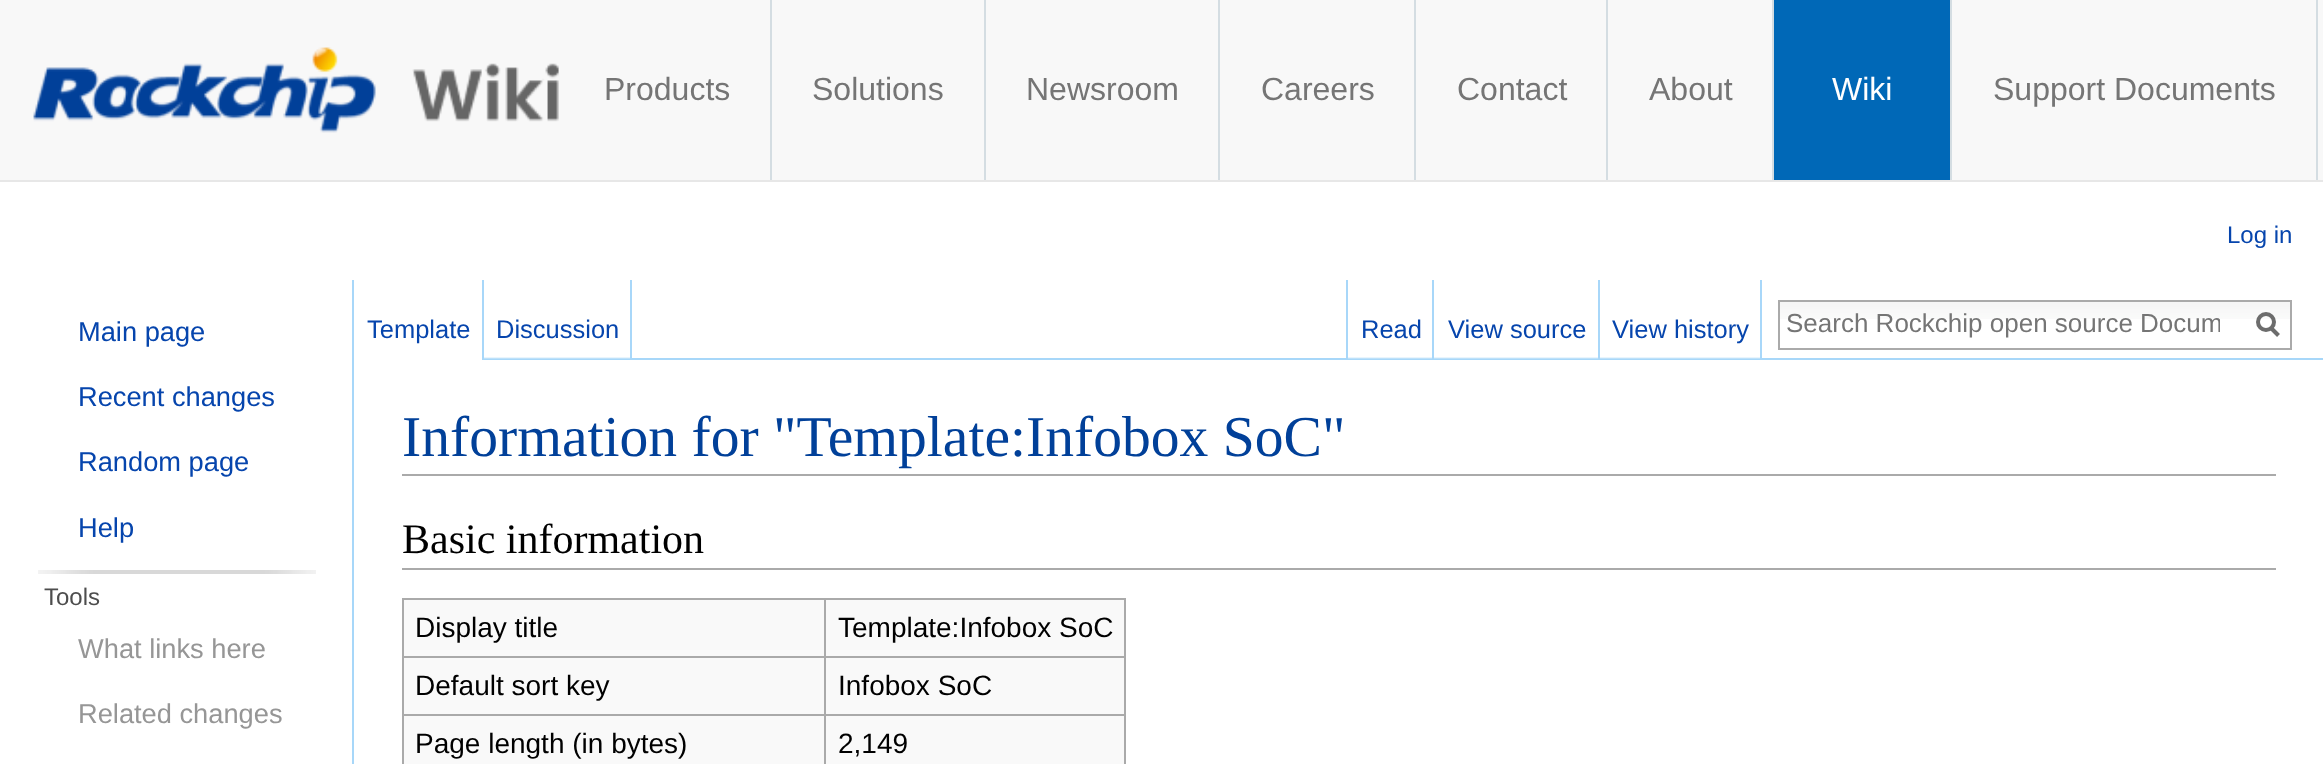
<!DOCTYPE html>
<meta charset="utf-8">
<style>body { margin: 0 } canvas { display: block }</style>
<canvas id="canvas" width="2323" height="764"></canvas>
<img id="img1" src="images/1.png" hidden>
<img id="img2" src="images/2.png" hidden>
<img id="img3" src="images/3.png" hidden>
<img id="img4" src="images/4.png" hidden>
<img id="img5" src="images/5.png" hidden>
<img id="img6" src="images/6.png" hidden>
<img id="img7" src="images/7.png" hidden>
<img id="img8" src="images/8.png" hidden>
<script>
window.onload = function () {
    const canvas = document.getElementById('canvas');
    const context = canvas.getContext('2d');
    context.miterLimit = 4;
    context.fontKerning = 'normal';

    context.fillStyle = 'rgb(255, 255, 255)';
    context.fillRect(0, 0, 2323, 764);
    context.fillStyle = 'rgb(248, 248, 248)';
    context.fillRect(0, 0, 2323, 180);
    context.fillStyle = 'rgb(231, 231, 231)';
    context.fillRect(0, 180, 2323, 2);
    context.drawImage(document.getElementById('img1'), 33, 47, 343, 86);
    context.drawImage(document.getElementById('img2'), 412, 63, 147, 59);
    context.fillStyle = 'rgb(212, 221, 226)';
    context.fillRect(770, 0, 2, 180);
    context.fillRect(984, 0, 2, 180);
    context.fillRect(1218, 0, 2, 180);
    context.fillRect(1414, 0, 2, 180);
    context.fillRect(1606, 0, 2, 180);
    context.fillRect(1772, 0, 2, 180);
    context.fillStyle = 'rgb(0, 104, 183)';
    context.fillRect(1774, 0, 176, 180);
    context.fillStyle = 'rgb(212, 221, 226)';
    context.fillRect(1950, 0, 2, 180);
    context.fillRect(2316, 0, 2, 180);
    context.fillStyle = 'rgb(168, 215, 249)';
    context.fillRect(352, 280, 2, 78);
    context.fillRect(482, 280, 2, 80);
    context.drawImage(document.getElementById('img3'), 484, 280, 148, 80);
    context.fillRect(630, 280, 2, 79);
    context.fillRect(1346, 280, 2, 78);
    context.fillStyle = 'rgb(167, 215, 249)';
    context.fillRect(632, 358, 1691, 2);
    context.drawImage(document.getElementById('img4'), 1348, 280, 86, 80);
    context.fillStyle = 'rgb(168, 215, 249)';
    context.fillRect(1432, 280, 2, 79);
    context.drawImage(document.getElementById('img5'), 1434, 280, 166, 80);
    context.fillRect(1598, 280, 2, 79);
    context.drawImage(document.getElementById('img6'), 1600, 280, 162, 80);
    context.fillRect(1760, 280, 2, 79);
    context.drawImage(document.getElementById('img7'), 1780, 302, 510, 17);
    context.strokeStyle = 'rgb(170, 170, 170)';
    context.lineWidth = 2;
    context.strokeRect(1779, 301, 512, 48);
    context.beginPath();
    context.moveTo(2278.5, 335.5);
    context.lineTo(2270.5, 327.5);
    context.strokeStyle = 'rgb(108, 108, 108)';
    context.lineWidth = 4;
    context.stroke();
    context.beginPath();
    context.arc(2266, 322, 8, 0, 2 * Math.PI);
    context.stroke();
    context.drawImage(document.getElementById('img8'), 38, 570, 278, 4);
    context.fillStyle = 'rgb(167, 215, 249)';
    context.fillRect(352, 358, 2, 406);
    context.fillStyle = 'rgb(170, 170, 170)';
    context.fillRect(402, 474, 1874, 2);
    context.fillRect(402, 568, 1874, 2);
    context.fillStyle = 'rgb(249, 249, 249)';
    context.fillRect(404, 600, 720, 164);
    context.fillStyle = 'rgb(170, 170, 170)';
    context.fillRect(402, 598, 724, 2);
    context.fillRect(1124, 598, 2, 166);
    context.fillRect(402, 598, 2, 166);
    context.fillRect(824, 656, 302, 2);
    context.fillRect(824, 714, 302, 2);
    context.fillRect(824, 714, 2, 50);
    context.fillRect(402, 714, 424, 2);
    context.fillRect(824, 656, 2, 60);
    context.fillRect(402, 656, 424, 2);
    context.fillRect(824, 598, 2, 60);
    context.font = '32px Liberation Sans';
    context.fillStyle = 'rgb(117, 117, 117)';
    context.fillText('Products', 604, 100);
    context.fillText('Solutions', 812, 100);
    context.fillText('Newsroom', 1026, 100);
    context.fillText('Careers', 1261, 100);
    context.fillText('Contact', 1457, 100);
    context.fillText('About', 1649, 100);
    context.fillStyle = 'rgb(255, 255, 255)';
    context.fillText('Wiki', 1832, 100);
    context.fillStyle = 'rgb(117, 117, 117)';
    context.fillText('Support Documents', 1993, 100);
    context.font = '24px Liberation Sans';
    context.fillStyle = 'rgb(6, 69, 173)';
    context.fillText('Log in', 2227, 243);
    context.font = '25.5px Liberation Sans';
    context.fillText('Template', 367, 338);
    context.fillText('Discussion', 496, 338);
    context.fillText('Read', 1361, 338);
    context.fillText('View source', 1448, 338);
    context.fillText('View history', 1612, 338);
    context.save();
    context.beginPath();
    context.rect(1786, 308, 434, 30);
    context.clip();
    context.font = '26px Liberation Sans';
    context.fillStyle = 'rgb(117, 117, 117)';
    context.fillText('Search Rockchip open source Docum', 1786, 332);
    context.restore();
    context.font = '27.25px Liberation Sans';
    context.fillText('Main page', 78, 341);
    context.fillText('Recent changes', 78, 406);
    context.fillText('Random page', 78, 471);
    context.fillText('Help', 78, 537);
    context.font = '24px Liberation Sans';
    context.fillStyle = 'rgb(77, 77, 77)';
    context.fillText('Tools', 44, 605);
    context.font = '27.25px Liberation Sans';
    context.fillStyle = 'rgb(150, 150, 150)';
    context.fillText('What links here', 78, 658);
    context.fillText('Related changes', 78, 723);
    context.font = '57.6px Liberation Serif';
    context.fillStyle = 'rgb(1, 64, 153)';
    context.fillText('Information for "Template:Infobox SoC"', 402, 456);
    context.font = '42px Liberation Serif';
    context.fillStyle = 'rgb(0, 0, 0)';
    context.fillText('Basic information', 402, 553);
    context.font = '28px Liberation Sans';
    context.fillText('Display title', 415, 637);
    context.fillText('Template:Infobox SoC', 838, 637);
    context.fillText('Default sort key', 415, 695);
    context.fillText('Infobox SoC', 838, 695);
    context.fillText('Page length (in bytes)', 415, 753);
    context.fillText('2,149', 838, 753);
};
</script>
